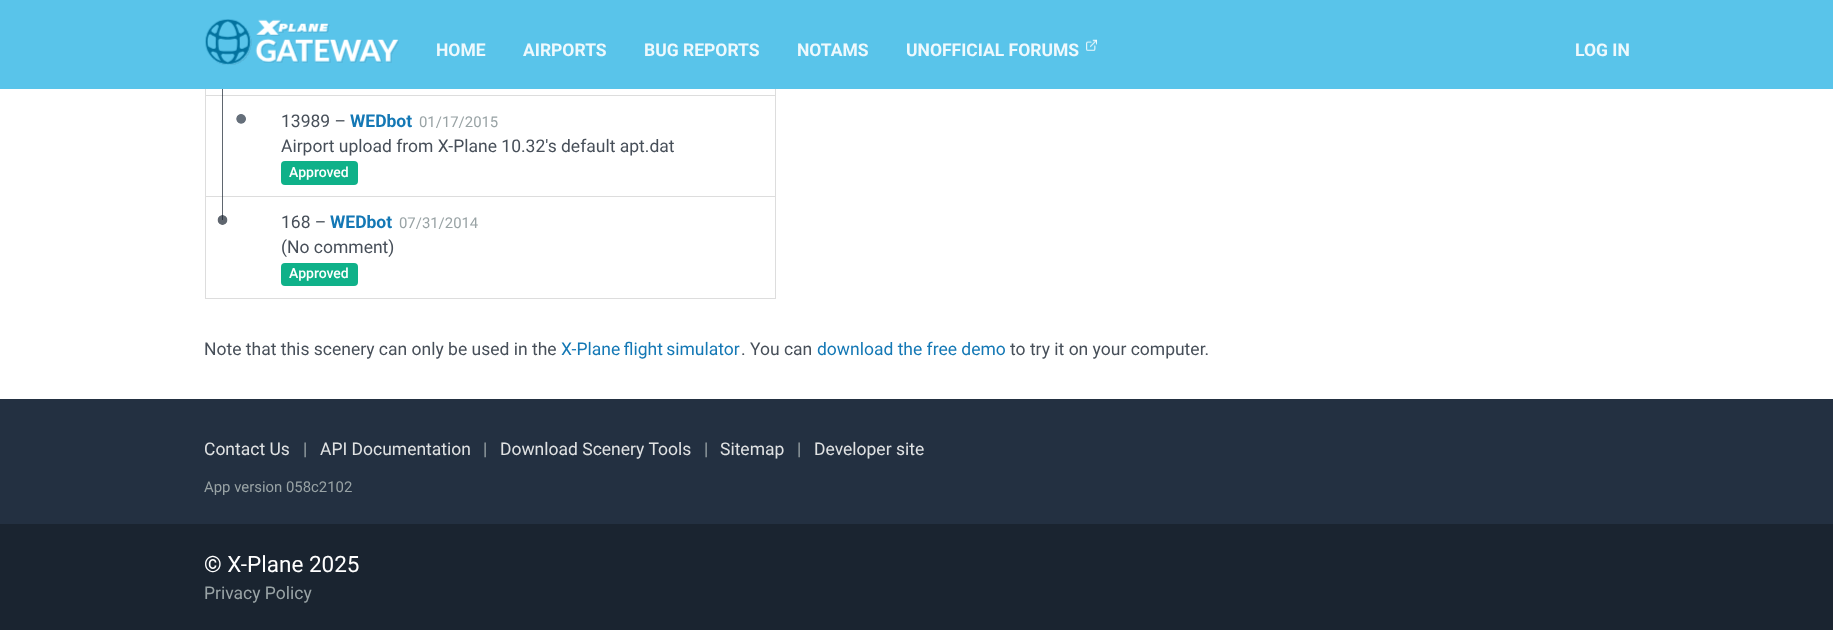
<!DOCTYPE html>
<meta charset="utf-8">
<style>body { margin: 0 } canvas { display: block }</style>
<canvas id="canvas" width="1833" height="630"></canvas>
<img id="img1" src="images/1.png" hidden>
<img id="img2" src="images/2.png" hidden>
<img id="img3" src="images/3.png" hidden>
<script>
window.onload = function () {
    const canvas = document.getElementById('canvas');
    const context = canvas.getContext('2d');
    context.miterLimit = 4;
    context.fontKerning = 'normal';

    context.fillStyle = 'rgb(255, 255, 255)';
    context.fillRect(0, 0, 1833, 630);
    context.strokeStyle = 'rgb(221, 221, 221)';
    context.strokeRect(205.5, -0.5, 570, 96);
    context.fillStyle = 'rgb(89, 196, 234)';
    context.fillRect(0, 0, 1833, 89);
    context.drawImage(document.getElementById('img1'), 205, 19, 194, 46);
    context.drawImage(document.getElementById('img2'), 1086, 39, 11, 12);
    context.strokeRect(205.5, 95.5, 570, 102);
    context.fillStyle = 'rgb(255, 255, 255)';
    context.fillRect(206, 197, 569, 1);
    context.strokeRect(205.5, 196.5, 570, 102);
    context.drawImage(document.getElementById('img3'), 217, 89, 29, 136);
    context.fillStyle = 'rgb(15, 177, 137)';
    context.beginPath();
    context.roundRect(281, 161, 77, 24, 4);
    context.fill();
    context.beginPath();
    context.roundRect(281, 263, 77, 23, 4);
    context.fill();
    context.fillStyle = 'rgb(35, 48, 65)';
    context.fillRect(0, 399, 1833, 125);
    context.fillStyle = 'rgb(26, 36, 48)';
    context.fillRect(0, 524, 1833, 106);
    context.font = 'bold 17.5px Roboto';
    context.fillStyle = 'rgb(238, 249, 253)';
    context.fillText('HOME', 436, 56);
    context.fillText('AIRPORTS', 523, 56);
    context.fillText('BUG REPORTS', 644, 56);
    context.fillText('NOTAMS', 797, 56);
    context.fillText('UNOFFICIAL FORUMS', 906, 56);
    context.fillText('LOG IN', 1575, 56);
    context.font = '17.5px Roboto';
    context.fillStyle = 'rgb(71, 79, 89)';
    context.fillText('13989 –', 281, 127);
    context.font = 'bold 17.5px Roboto';
    context.fillStyle = 'rgb(20, 120, 181)';
    context.fillText('WEDbot', 350, 127);
    context.font = '14.9px Roboto';
    context.fillStyle = 'rgb(153, 163, 165)';
    context.fillText('01/17/2015', 419, 127);
    context.font = '17.5px Roboto';
    context.fillStyle = 'rgb(71, 79, 89)';
    context.fillText('Airport upload from X-Plane 10.32\'s default apt.dat', 281, 152);
    context.font = '500 14px Roboto';
    context.fillStyle = 'rgb(255, 255, 255)';
    context.fillText('Approved', 289, 177);
    context.font = '17.5px Roboto';
    context.fillStyle = 'rgb(71, 79, 89)';
    context.fillText('168 –', 281, 228);
    context.font = 'bold 17.5px Roboto';
    context.fillStyle = 'rgb(20, 120, 181)';
    context.fillText('WEDbot', 330, 228);
    context.font = '14.9px Roboto';
    context.fillStyle = 'rgb(153, 163, 165)';
    context.fillText('07/31/2014', 399, 228);
    context.font = '17.5px Roboto';
    context.fillStyle = 'rgb(71, 79, 89)';
    context.fillText('(No comment)', 281, 253);
    context.font = '500 14px Roboto';
    context.fillStyle = 'rgb(255, 255, 255)';
    context.fillText('Approved', 289, 278);
    context.font = '17.5px Roboto';
    context.fillStyle = 'rgb(71, 79, 89)';
    context.fillText('Note that this scenery can only be used in the', 204, 355);
    context.wordSpacing = '-1px';
    context.fillStyle = 'rgb(20, 120, 181)';
    context.fillText('X-Plane flight simulator', 561, 355);
    context.wordSpacing = '0px';
    context.fillStyle = 'rgb(71, 79, 89)';
    context.fillText('. You can', 741, 355);
    context.fillStyle = 'rgb(20, 120, 181)';
    context.fillText('download the free demo', 817, 355);
    context.fillStyle = 'rgb(71, 79, 89)';
    context.fillText('to try it on your computer.', 1010, 355);
    context.fillStyle = 'rgb(224, 226, 227)';
    context.fillText('Contact Us', 204, 455);
    context.fillStyle = 'rgb(153, 163, 165)';
    context.fillText('|', 303, 455);
    context.fillStyle = 'rgb(224, 226, 227)';
    context.fillText('API Documentation', 320, 455);
    context.fillStyle = 'rgb(153, 163, 165)';
    context.fillText('|', 483, 455);
    context.fillStyle = 'rgb(224, 226, 227)';
    context.fillText('Download Scenery Tools', 500, 455);
    context.fillStyle = 'rgb(153, 163, 165)';
    context.fillText('|', 704, 455);
    context.fillStyle = 'rgb(224, 226, 227)';
    context.fillText('Sitemap', 720, 455);
    context.fillStyle = 'rgb(153, 163, 165)';
    context.fillText('|', 797, 455);
    context.fillStyle = 'rgb(224, 226, 227)';
    context.fillText('Developer site', 814, 455);
    context.font = '14.9px Roboto';
    context.fillStyle = 'rgb(153, 163, 165)';
    context.fillText('App version 058c2102', 204, 492);
    context.font = '22.5px Roboto';
    context.fillStyle = 'rgb(255, 255, 255)';
    context.fillText('© X-Plane 2025', 204, 572);
    context.font = '17.5px Roboto';
    context.fillStyle = 'rgb(153, 163, 165)';
    context.fillText('Privacy Policy', 204, 599);
};
</script>
